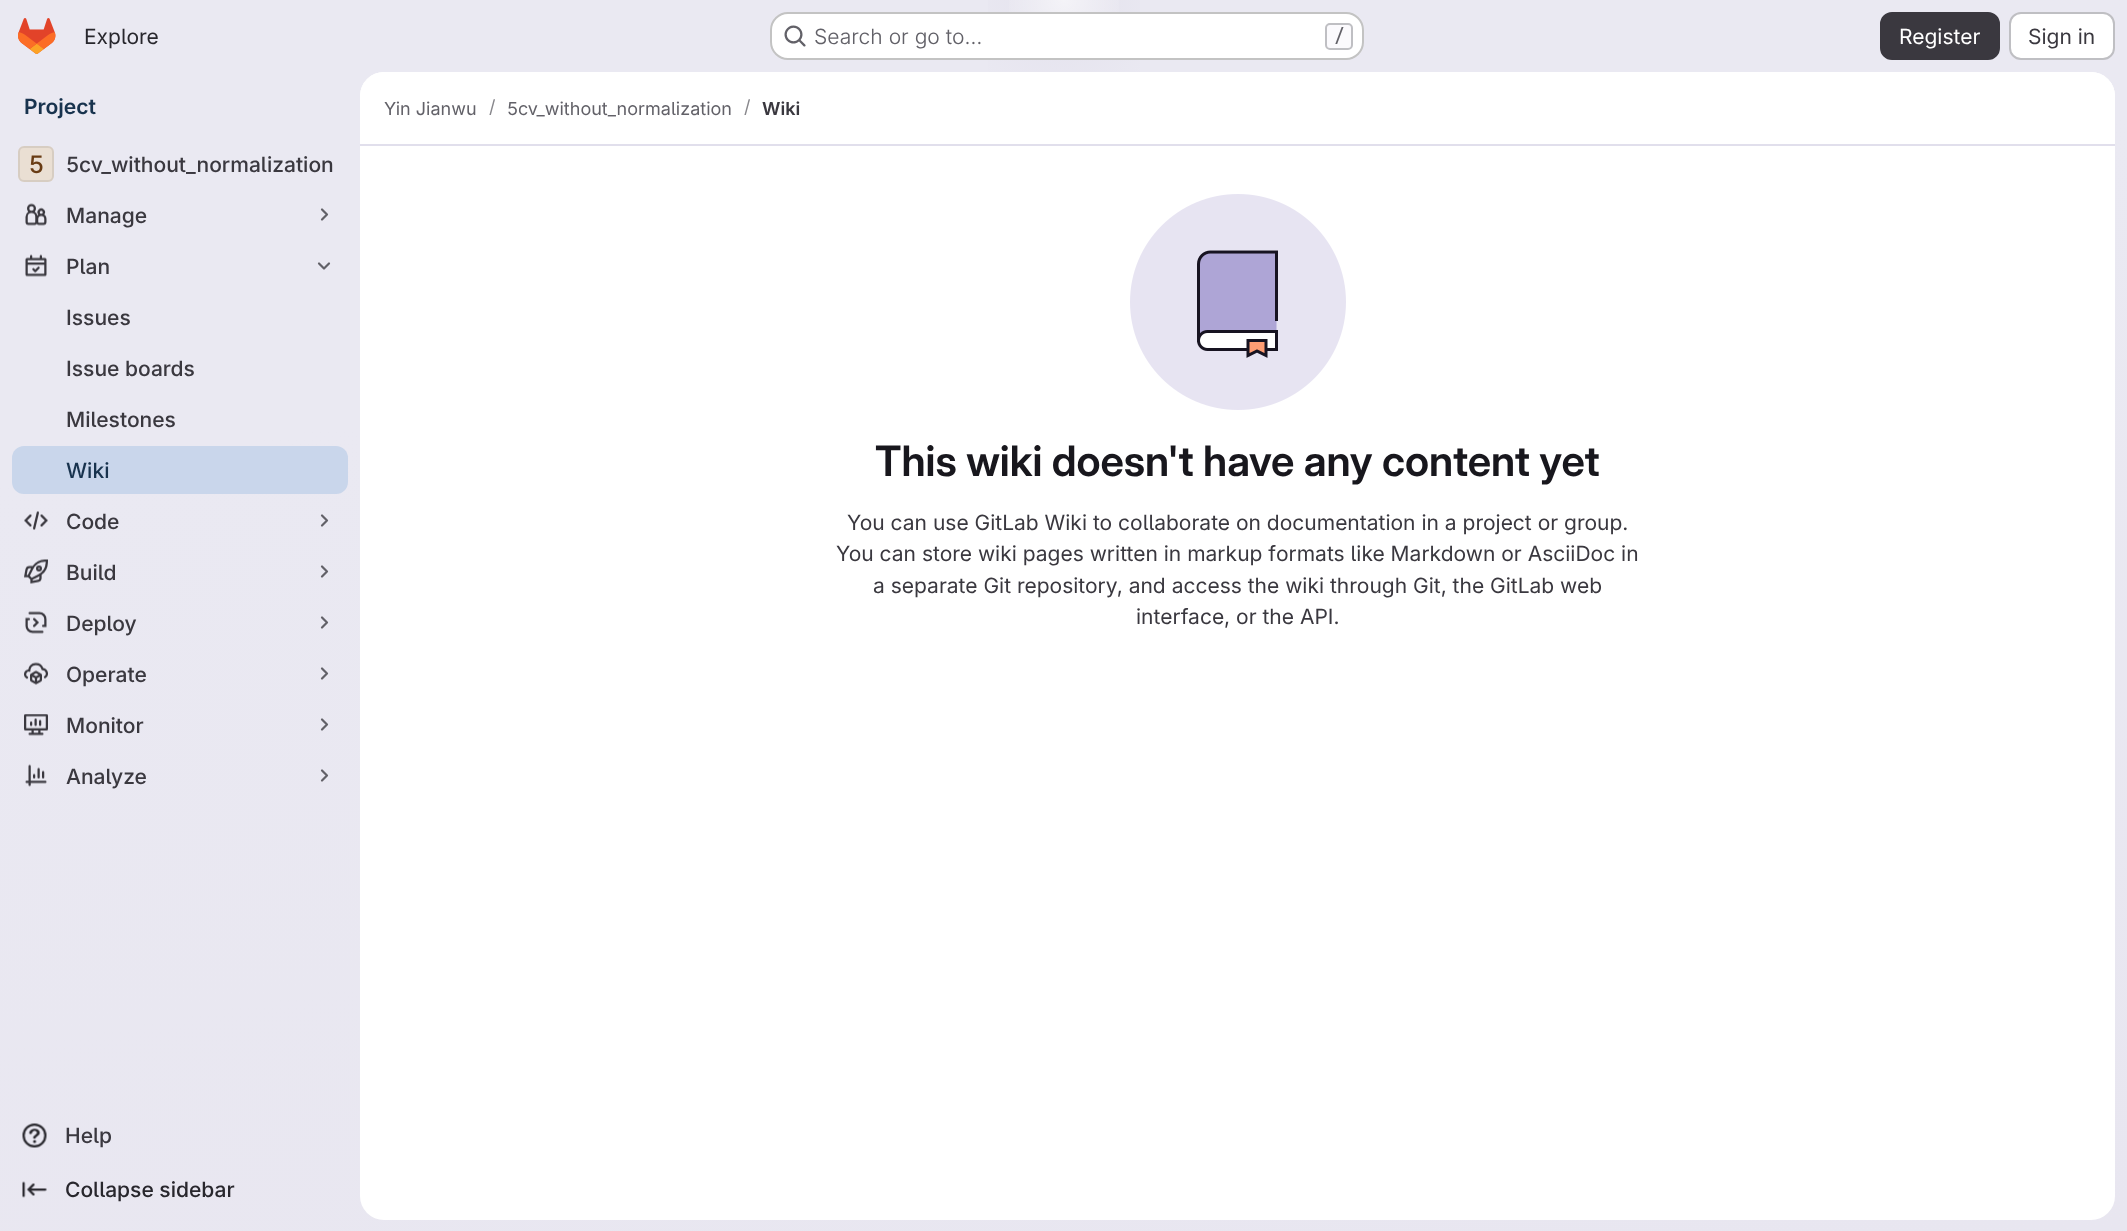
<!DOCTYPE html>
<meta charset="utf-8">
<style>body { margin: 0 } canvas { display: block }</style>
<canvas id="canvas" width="2127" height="1231"></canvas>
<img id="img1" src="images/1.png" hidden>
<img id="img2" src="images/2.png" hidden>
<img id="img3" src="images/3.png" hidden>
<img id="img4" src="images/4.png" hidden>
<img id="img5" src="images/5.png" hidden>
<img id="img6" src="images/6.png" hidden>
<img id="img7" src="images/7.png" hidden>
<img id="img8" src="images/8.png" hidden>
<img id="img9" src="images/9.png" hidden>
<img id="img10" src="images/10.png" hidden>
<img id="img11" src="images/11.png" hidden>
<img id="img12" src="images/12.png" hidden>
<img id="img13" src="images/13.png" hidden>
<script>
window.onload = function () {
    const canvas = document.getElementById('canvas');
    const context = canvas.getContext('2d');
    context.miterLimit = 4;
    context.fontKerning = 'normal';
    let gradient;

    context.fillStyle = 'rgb(255, 255, 255)';
    context.fillRect(0, 0, 2127, 1231);
    gradient = context.createLinearGradient(1201, 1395, 926, -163);
    gradient.addColorStop(0, 'rgb(232, 230, 240)');
    gradient.addColorStop(0.7, 'rgb(234, 233, 242)');
    context.fillStyle = gradient;
    context.fillRect(0, 0, 2127, 1231);
    gradient = context.createRadialGradient(1064, 0, 0, 1064, 0, 1064);
    gradient.addColorStop(0, 'rgb(228, 226, 237)');
    gradient.addColorStop(0.1, 'rgba(228, 226, 237, 0)');
    context.fillStyle = gradient;
    context.beginPath();
    context.rect(988, 0, 152, 72);
    context.save();
    context.clip();
    context.scale(1, 1232 / 1064);
    context.fillRect(0, 0, 2127, 1064);
    context.restore();
    gradient = context.createRadialGradient(1064, 0, 0, 1064, 0, 1064);
    gradient.addColorStop(0, 'rgb(228, 226, 236)');
    gradient.addColorStop(0.07, 'rgba(228, 226, 236, 0)');
    context.fillStyle = gradient;
    context.beginPath();
    context.rect(1054, 18, 20, 4);
    context.save();
    context.clip();
    context.scale(1, 1232 / 1064);
    context.fillRect(0, 0, 2127, 1064);
    context.restore();
    gradient = context.createRadialGradient(1064, 0, 0, 1064, 0, 1627);
    gradient.addColorStop(0, 'rgba(255, 255, 255, 0.6)');
    gradient.addColorStop(0.04, 'rgba(255, 255, 255, 0)');
    context.fillStyle = gradient;
    context.fillRect(1009, 0, 110, 12);
    context.drawImage(document.getElementById('img1'), 18, 18, 38, 36);
    context.fillStyle = 'rgb(255, 255, 255)';
    context.beginPath();
    context.roundRect(770, 12, 594, 48, 18);
    context.fill();
    context.beginPath();
    context.roundRect(771, 13, 592, 46, 17);
    context.strokeStyle = 'rgba(5, 5, 6, 0.24)';
    context.lineWidth = 2;
    context.stroke();
    context.drawImage(document.getElementById('img2'), 784, 25, 22, 22);
    context.fillStyle = 'rgb(251, 250, 253)';
    context.beginPath();
    context.roundRect(1326, 24, 26, 25, 4);
    context.fill();
    context.strokeStyle = 'rgb(191, 191, 195)';
    context.stroke();
    context.fillStyle = 'rgb(58, 56, 63)';
    context.beginPath();
    context.roundRect(1881, 13, 118, 46, 11);
    context.fill();
    context.strokeStyle = 'rgb(58, 56, 63)';
    context.stroke();
    context.fillStyle = 'rgb(255, 255, 255)';
    context.beginPath();
    context.roundRect(2010, 13, 104, 46, 11);
    context.fill();
    context.strokeStyle = 'rgb(191, 191, 195)';
    context.stroke();
    context.fillStyle = 'rgb(234, 223, 211)';
    context.beginPath();
    context.roundRect(18, 146, 36, 36, 6);
    context.fill();
    context.beginPath();
    context.roundRect(19, 147, 34, 34, 5);
    context.strokeStyle = 'rgba(5, 5, 6, 0.08)';
    context.stroke();
    context.drawImage(document.getElementById('img3'), 25, 203, 22, 23);
    context.beginPath();
    context.moveTo(322, 209.5);
    context.lineTo(327, 214.5);
    context.lineTo(322, 219.5);
    context.strokeStyle = 'rgb(98, 97, 104)';
    context.lineWidth = 2.2;
    context.lineCap = 'round';
    context.lineJoin = 'round';
    context.stroke();
    context.drawImage(document.getElementById('img4'), 25, 254, 22, 23);
    context.beginPath();
    context.moveTo(329, 263.5);
    context.lineTo(324, 268.5);
    context.lineTo(319, 263.5);
    context.stroke();
    context.fillStyle = 'rgb(201, 214, 235)';
    context.beginPath();
    context.roundRect(12, 446, 336, 48, 12);
    context.fill();
    context.drawImage(document.getElementById('img5'), 24, 511, 24, 19);
    context.beginPath();
    context.moveTo(322, 515.5);
    context.lineTo(327, 520.5);
    context.lineTo(322, 525.5);
    context.stroke();
    context.drawImage(document.getElementById('img6'), 24, 559, 24, 25);
    context.beginPath();
    context.moveTo(322, 566.5);
    context.lineTo(327, 571.5);
    context.lineTo(322, 576.5);
    context.stroke();
    context.drawImage(document.getElementById('img7'), 25, 611, 22, 23);
    context.beginPath();
    context.moveTo(322, 617.5);
    context.lineTo(327, 622.5);
    context.lineTo(322, 627.5);
    context.stroke();
    context.drawImage(document.getElementById('img8'), 24, 662, 24, 23);
    context.beginPath();
    context.moveTo(322, 668.5);
    context.lineTo(327, 673.5);
    context.lineTo(322, 678.5);
    context.stroke();
    context.drawImage(document.getElementById('img9'), 24, 714, 24, 22);
    context.beginPath();
    context.moveTo(322, 719.5);
    context.lineTo(327, 724.5);
    context.lineTo(322, 729.5);
    context.stroke();
    context.drawImage(document.getElementById('img10'), 25, 764, 22, 23);
    context.beginPath();
    context.moveTo(322, 770.5);
    context.lineTo(327, 775.5);
    context.lineTo(322, 780.5);
    context.stroke();
    context.drawImage(document.getElementById('img11'), 22, 1123, 25, 25);
    context.drawImage(document.getElementById('img12'), 22, 1181, 25, 17);
    context.fillStyle = 'rgb(255, 255, 255)';
    context.beginPath();
    context.roundRect(360, 72, 1755, 1148, 24);
    context.fill();
    context.beginPath();
    context.roundRect(360, 72, 1755, 74, [24, 24, 0, 0]);
    context.fill();
    context.fillStyle = 'rgb(225, 223, 236)';
    context.fillRect(360, 144, 1755, 2);
    context.drawImage(document.getElementById('img13'), 1130, 194, 216, 216);
    context.font = '21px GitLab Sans';
    context.fillStyle = 'rgb(40, 39, 45)';
    context.fillText('Explore', 84, 44);
    context.font = '300 21px GitLab Sans';
    context.fillStyle = 'rgb(98, 97, 104)';
    context.fillText('Search or go to…', 814, 44);
    context.font = '500 18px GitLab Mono';
    context.fillText('/', 1334, 42);
    context.font = '21px GitLab Sans';
    context.fillStyle = 'rgb(255, 255, 255)';
    context.fillText('Register', 1899, 44);
    context.fillStyle = 'rgb(58, 56, 63)';
    context.fillText('Sign in', 2028, 44);
    context.font = '600 21px "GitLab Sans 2"';
    context.fillStyle = 'rgb(24, 51, 78)';
    context.fillText('Project', 24, 114);
    context.font = '500 24px "GitLab Sans 2"';
    context.fillStyle = 'rgb(105, 60, 20)';
    context.fillText('5', 29, 173);
    context.font = '500 21px GitLab Sans';
    context.fillStyle = 'rgb(58, 56, 63)';
    context.fillText('5cv_without_normalization', 66, 172);
    context.fillText('Manage', 66, 223);
    context.fillText('Plan', 66, 274);
    context.fillText('Issues', 66, 325);
    context.fillText('Issue boards', 66, 376);
    context.fillText('Milestones', 66, 427);
    context.fillStyle = 'rgb(24, 51, 78)';
    context.fillText('Wiki', 66, 478);
    context.fillStyle = 'rgb(58, 56, 63)';
    context.fillText('Code', 66, 529);
    context.fillText('Build', 66, 580);
    context.fillText('Deploy', 66, 631);
    context.fillText('Operate', 66, 682);
    context.fillText('Monitor', 66, 733);
    context.fillText('Analyze', 66, 784);
    context.fillText('Help', 65, 1143);
    context.fillStyle = 'rgb(40, 39, 45)';
    context.fillText('Collapse sidebar', 65, 1197);
    context.font = '18px GitLab Sans';
    context.fillStyle = 'rgb(98, 97, 104)';
    context.fillText('Yin Jianwu', 384, 115);
    context.fillStyle = 'rgb(137, 136, 141)';
    context.fillText('/', 489, 113);
    context.fillStyle = 'rgb(98, 97, 104)';
    context.fillText('5cv_without_normalization', 507, 115);
    context.fillStyle = 'rgb(137, 136, 141)';
    context.fillText('/', 744, 113);
    context.font = '600 18px "GitLab Sans 2"';
    context.fillStyle = 'rgb(58, 56, 63)';
    context.fillText('Wiki', 762, 115);
    context.font = '600 42px GitLab Sans';
    context.fillStyle = 'rgb(24, 23, 29)';
    context.fillText('This wiki doesn\'t have any content yet', 875, 476);
    context.font = '21px GitLab Sans';
    context.fillStyle = 'rgb(58, 56, 63)';
    context.fillText('You can use GitLab Wiki to collaborate on documentation in a project or group.', 847, 530);
    context.fillText('You can store wiki pages written in markup formats like Markdown or AsciiDoc in', 836, 561);
    context.fillText('a separate Git repository, and access the wiki through Git, the GitLab web', 873, 593);
    context.fillText('interface, or the API.', 1136, 624);
};
</script>
